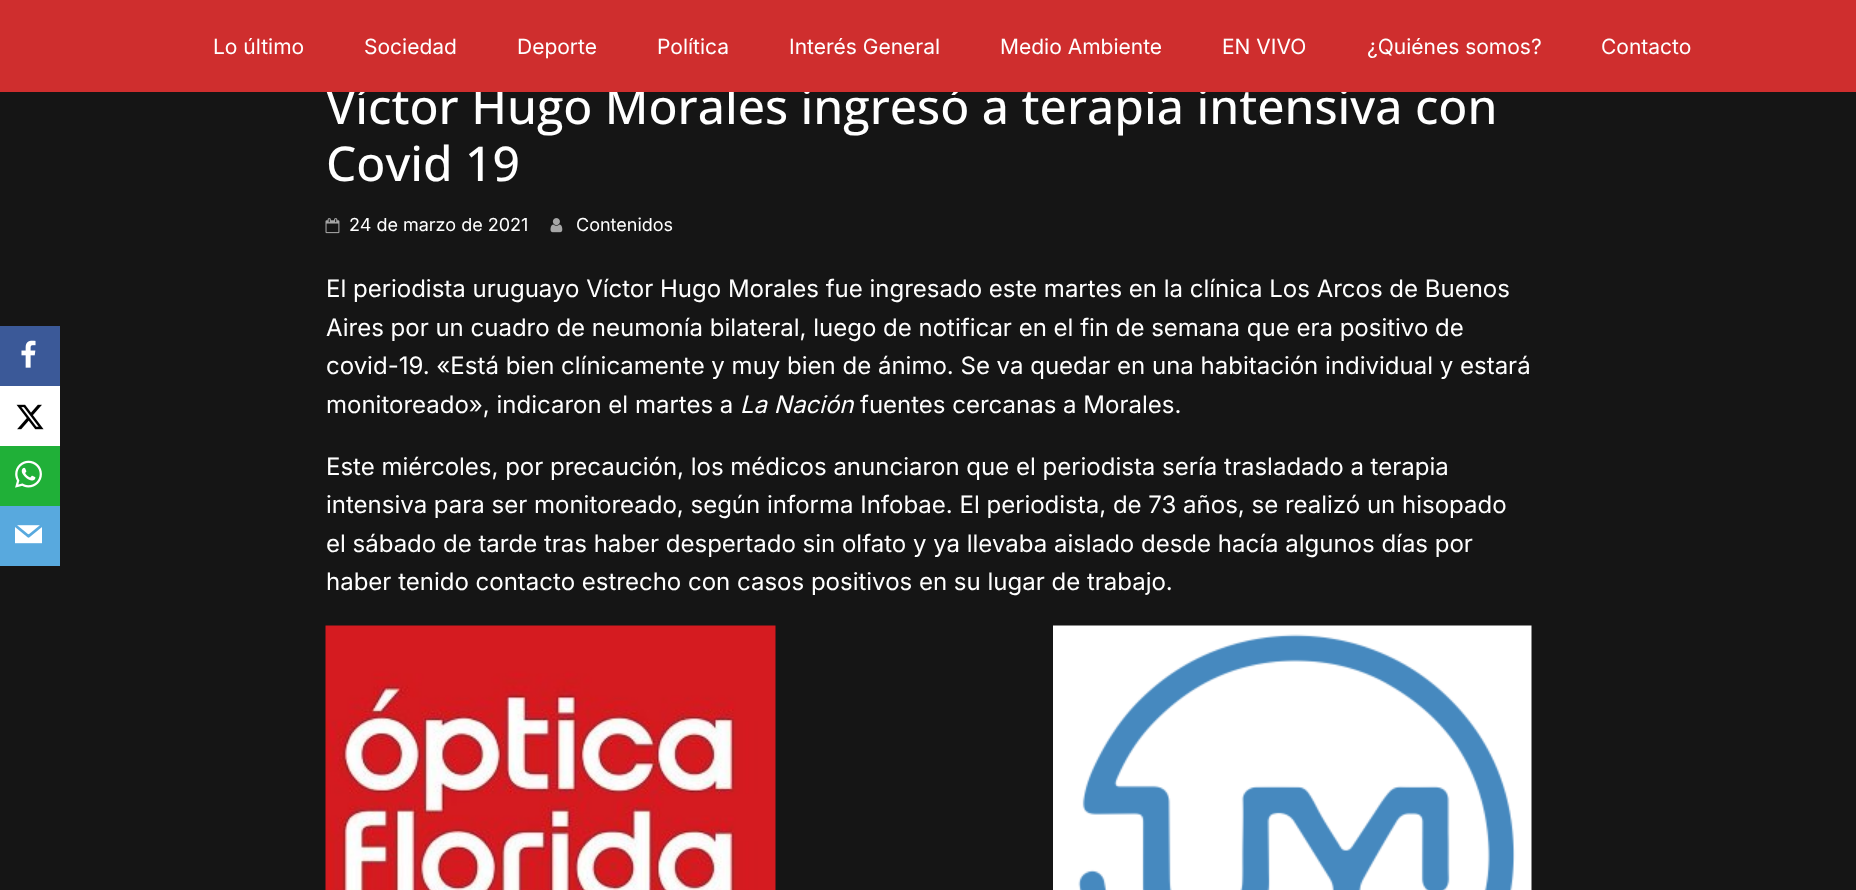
<!DOCTYPE html>
<meta charset="utf-8">
<style>body { margin: 0 } canvas { display: block }</style>
<canvas id="canvas" width="1856" height="890"></canvas>
<img id="img1" src="images/1.png" hidden>
<img id="img2" src="images/2.png" hidden>
<img id="img3" src="images/3.png" hidden>
<img id="img4" src="images/4.png" hidden>
<img id="img5" src="images/5.png" hidden>
<img id="img6" src="images/6.png" hidden>
<img id="img7" src="images/7.png" hidden>
<img id="img8" src="images/8.png" hidden>
<script>
window.onload = function () {
    const canvas = document.getElementById('canvas');
    const context = canvas.getContext('2d');
    context.miterLimit = 4;
    context.fontKerning = 'normal';

    context.fillStyle = 'rgb(21, 21, 21)';
    context.fillRect(0, 0, 1856, 890);
    context.fillStyle = 'rgb(59, 89, 152)';
    context.fillRect(0, 326, 60, 60);
    context.drawImage(document.getElementById('img1'), 21, 340, 15, 28);
    context.fillStyle = 'rgb(255, 255, 255)';
    context.fillRect(0, 386, 60, 60);
    context.drawImage(document.getElementById('img2'), 16, 404, 28, 26);
    context.fillStyle = 'rgb(32, 176, 56)';
    context.fillRect(0, 446, 60, 60);
    context.drawImage(document.getElementById('img3'), 15, 460, 27, 28);
    context.fillStyle = 'rgb(88, 169, 222)';
    context.fillRect(0, 506, 60, 60);
    context.drawImage(document.getElementById('img4'), 15, 525, 27, 19);
    context.drawImage(document.getElementById('img5'), 325, 218, 15, 16);
    context.drawImage(document.getElementById('img6'), 550, 218, 13, 15);
    context.drawImage(document.getElementById('img7'), 325, 625, 451, 265);
    context.drawImage(document.getElementById('img8'), 1053, 625, 479, 265);
    context.font = '500 48px Open Sans';
    context.fillStyle = 'rgb(255, 255, 255)';
    context.fillText('Víctor Hugo Morales ingresó a terapia intensiva con', 326, 124);
    context.fillStyle = 'rgb(207, 46, 46)';
    context.fillRect(0, 0, 1856, 92);
    context.font = '21px Inter';
    context.fillStyle = 'rgb(255, 255, 255)';
    context.fillText('Contacto', 1601, 54);
    context.fillText('¿Quiénes somos?', 1367, 54);
    context.fillText('EN VIVO', 1222, 54);
    context.fillText('Medio Ambiente', 1000, 54);
    context.fillText('Interés General', 789, 54);
    context.fillText('Política', 657, 54);
    context.fillText('Deporte', 517, 54);
    context.fillText('Sociedad', 364, 54);
    context.fillText('Lo último', 213, 54);
    context.font = '500 48px Open Sans';
    context.fillText('Covid 19', 326, 181);
    context.font = '18px Inter';
    context.fillText('24 de marzo de 2021', 349, 231);
    context.fillText('Contenidos', 576, 231);
    context.font = '24px Inter';
    context.fillText('El periodista uruguayo Víctor Hugo Morales fue ingresado este martes en la clínica Los Arcos de Buenos', 326, 297);
    context.fillText('Aires por un cuadro de neumonía bilateral, luego de notificar en el fin de semana que era positivo de', 326, 336);
    context.fillText('covid-19. «Está bien clínicamente y muy bien de ánimo. Se va quedar en una habitación individual y estará', 326, 374);
    context.fillText('monitoreado», indicaron el martes a', 326, 413);
    context.font = 'italic 24px Inter';
    context.fillText('La Nación', 740, 413);
    context.font = '24px Inter';
    context.fillText('fuentes cercanas a Morales.', 860, 413);
    context.fillText('Este miércoles, por precaución, los médicos anunciaron que el periodista sería trasladado a terapia', 326, 475);
    context.fillText('intensiva para ser monitoreado, según informa Infobae. El periodista, de 73 años, se realizó un hisopado', 326, 513);
    context.fillText('el sábado de tarde tras haber despertado sin olfato y ya llevaba aislado desde hacía algunos días por', 326, 552);
    context.fillText('haber tenido contacto estrecho con casos positivos en su lugar de trabajo.', 326, 590);
};
</script>
